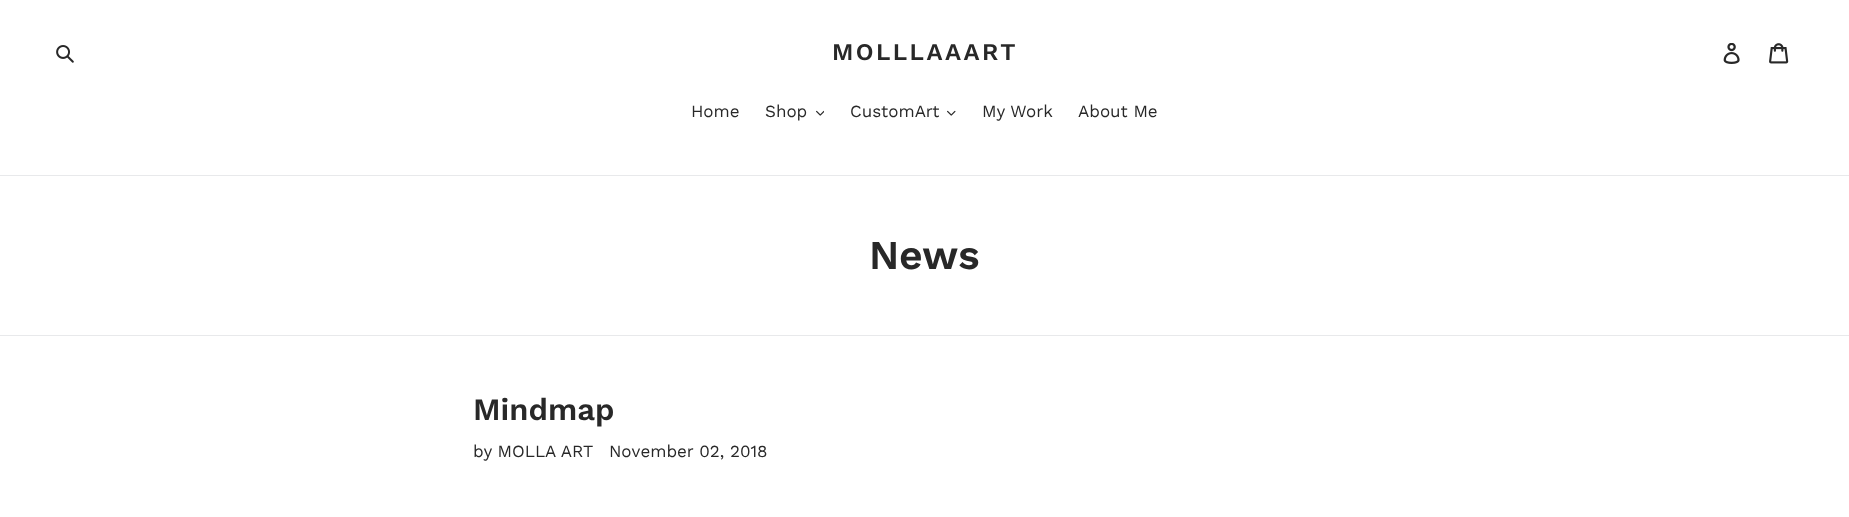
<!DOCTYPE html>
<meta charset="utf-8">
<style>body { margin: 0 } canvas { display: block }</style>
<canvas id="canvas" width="1849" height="517"></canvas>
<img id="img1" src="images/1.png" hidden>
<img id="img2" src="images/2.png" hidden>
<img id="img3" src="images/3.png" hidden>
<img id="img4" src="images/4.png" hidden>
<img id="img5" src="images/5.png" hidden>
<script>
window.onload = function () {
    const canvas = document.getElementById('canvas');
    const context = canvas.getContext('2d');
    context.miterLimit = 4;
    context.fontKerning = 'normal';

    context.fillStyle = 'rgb(255, 255, 255)';
    context.fillRect(0, 0, 1849, 517);
    context.drawImage(document.getElementById('img1'), 56, 45, 18, 18);
    context.drawImage(document.getElementById('img2'), 1723, 43, 17, 21);
    context.drawImage(document.getElementById('img3'), 1769, 43, 20, 21);
    context.fillStyle = 'rgb(232, 233, 235)';
    context.fillRect(0, 175, 1849, 1);
    context.drawImage(document.getElementById('img4'), 816, 110, 8, 6);
    context.drawImage(document.getElementById('img5'), 947, 110, 9, 6);
    context.fillRect(0, 335, 1849, 1);
    context.letterSpacing = '2.4px';
    context.font = '600 24px Work Sans';
    context.fillStyle = 'rgb(40, 40, 40)';
    context.fillText('MOLLLAAART', 832, 60);
    context.letterSpacing = '0px';
    context.font = '17px Work Sans';
    context.fillText('Home', 691, 117);
    context.fillText('Shop', 765, 117);
    context.fillText('CustomArt', 850, 117);
    context.fillText('My Work', 982, 117);
    context.fillText('About Me', 1078, 117);
    context.font = '600 41px Work Sans';
    context.fillText('News', 869, 269);
    context.font = '600 31px Work Sans';
    context.fillText('Mindmap', 473, 420);
    context.font = '17px Work Sans';
    context.fillText('by MOLLA ART', 473, 457);
    context.fillText('November 02, 2018', 609, 457);
};
</script>
